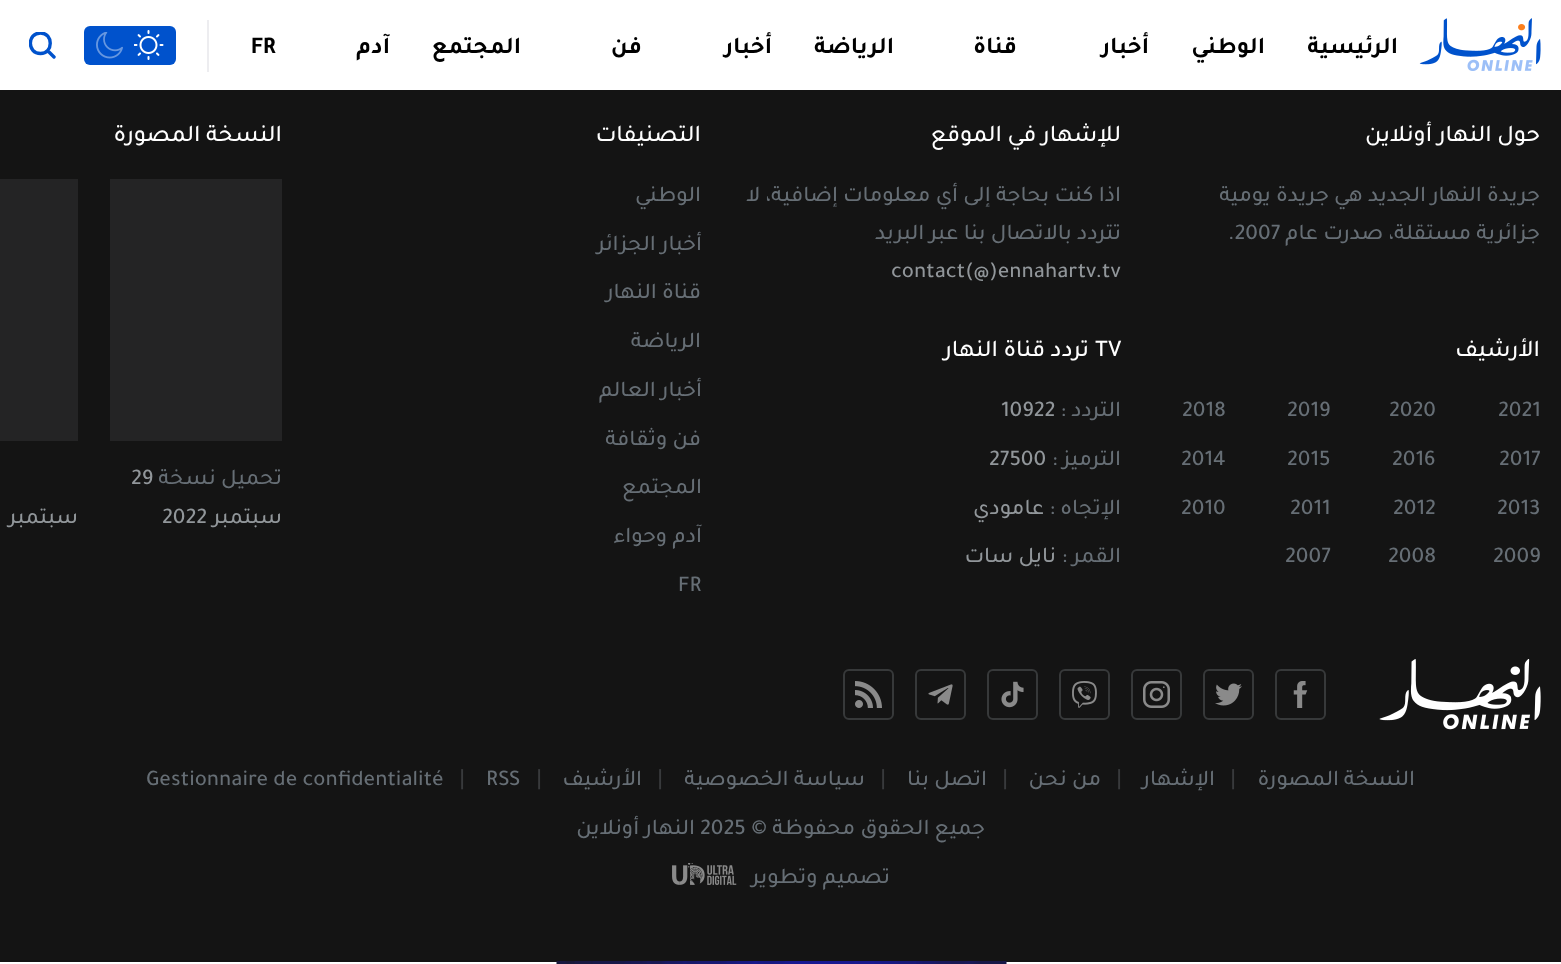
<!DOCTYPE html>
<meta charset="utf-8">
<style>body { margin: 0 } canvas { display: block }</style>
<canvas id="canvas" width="1561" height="964"></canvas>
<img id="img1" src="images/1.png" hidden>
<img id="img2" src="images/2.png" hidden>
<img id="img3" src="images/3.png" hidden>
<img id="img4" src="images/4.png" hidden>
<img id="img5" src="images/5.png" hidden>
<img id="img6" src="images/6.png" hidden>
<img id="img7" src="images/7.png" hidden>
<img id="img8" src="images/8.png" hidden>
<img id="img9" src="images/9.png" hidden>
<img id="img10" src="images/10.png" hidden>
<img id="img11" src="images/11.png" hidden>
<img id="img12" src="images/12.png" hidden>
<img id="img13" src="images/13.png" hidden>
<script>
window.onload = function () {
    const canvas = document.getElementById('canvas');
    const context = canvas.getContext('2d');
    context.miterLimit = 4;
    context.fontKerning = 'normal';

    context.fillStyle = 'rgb(255, 255, 255)';
    context.fillRect(0, 0, 1561, 964);
    context.drawImage(document.getElementById('img1'), 1419, 18, 122, 53);
    context.fillStyle = 'rgb(237, 237, 240)';
    context.fillRect(207, 20, 2, 52);
    context.fillStyle = 'rgb(0, 82, 204)';
    context.beginPath();
    context.roundRect(84, 26, 92, 39, 6);
    context.fill();
    context.drawImage(document.getElementById('img2'), 134, 30, 30, 30);
    context.drawImage(document.getElementById('img3'), 96, 32, 27, 27);
    context.save();
    context.beginPath();
    context.rect(29, 32, 27, 27);
    context.clip();
    context.beginPath();
    context.moveTo(54, 57);
    context.lineTo(49, 52);
    context.closePath();
    context.moveTo(40.5, 33);
    context.bezierCurveTo(53.5, 33, 53.5, 53.5, 40.5, 53.5);
    context.bezierCurveTo(27, 53.5, 27, 33, 40.5, 33);
    context.closePath();
    context.strokeStyle = 'rgb(0, 82, 204)';
    context.lineWidth = 3.4;
    context.lineJoin = 'round';
    context.stroke();
    context.restore();
    context.fillStyle = 'rgb(20, 20, 20)';
    context.fillRect(0, 90, 1561, 872);
    context.fillStyle = 'rgb(36, 36, 37)';
    context.fillRect(110, 179, 172, 262);
    context.fillRect(0, 179, 78, 262);
    context.drawImage(document.getElementById('img4'), 1379, 659, 162, 71);
    context.beginPath();
    context.roundRect(1276, 670, 49, 49, 5);
    context.strokeStyle = 'rgb(55, 57, 58)';
    context.lineWidth = 2;
    context.stroke();
    context.drawImage(document.getElementById('img5'), 1293, 681, 15, 27);
    context.beginPath();
    context.roundRect(1204, 670, 49, 49, 5);
    context.stroke();
    context.drawImage(document.getElementById('img6'), 1215, 683, 27, 23);
    context.beginPath();
    context.roundRect(1132, 670, 49, 49, 5);
    context.stroke();
    context.drawImage(document.getElementById('img7'), 1143, 681, 27, 27);
    context.beginPath();
    context.roundRect(1060, 670, 49, 49, 5);
    context.stroke();
    context.drawImage(document.getElementById('img8'), 1072, 681, 25, 27);
    context.beginPath();
    context.roundRect(988, 670, 49, 49, 5);
    context.stroke();
    context.drawImage(document.getElementById('img9'), 1001, 681, 23, 27);
    context.beginPath();
    context.roundRect(916, 670, 49, 49, 5);
    context.stroke();
    context.drawImage(document.getElementById('img10'), 928, 684, 25, 21);
    context.beginPath();
    context.roundRect(844, 670, 49, 49, 5);
    context.stroke();
    context.drawImage(document.getElementById('img11'), 855, 681, 27, 27);
    context.drawImage(document.getElementById('img12'), 672, 863, 65, 22);
    context.drawImage(document.getElementById('img13'), 556, 961, 451, 3);
    context.direction = 'rtl';
    context.font = 'bold 24px Tajawal';
    context.fillStyle = 'rgb(0, 0, 0)';
    context.fillText('الرئيسية', 1398, 53);
    context.fillText('الوطني', 1265, 53);
    context.fillText('أخبار', 1149, 53);
    context.fillText('قناة', 1017, 53);
    context.fillText('الرياضة', 894, 53);
    context.fillText('أخبار', 772, 53);
    context.fillText('فن', 642, 53);
    context.fillText('المجتمع', 521, 53);
    context.fillText('آدم', 390, 53);
    context.direction = 'ltr';
    context.fillText('FR', 251, 53);
    context.direction = 'rtl';
    context.font = '500 24px Tajawal';
    context.fillStyle = 'rgb(255, 255, 255)';
    context.fillText('حول النهار أونلاين', 1540, 141);
    context.font = '500 22.5px Tajawal';
    context.fillStyle = 'rgb(102, 110, 117)';
    context.fillText('جريدة النهار الجديد هي جريدة يومية', 1540, 201);
    context.fillText('جزائرية مستقلة، صدرت عام', 1540, 239);
    context.direction = 'ltr';
    context.fillText('.2007', 1228, 239);
    context.direction = 'rtl';
    context.font = '500 24px Tajawal';
    context.fillStyle = 'rgb(255, 255, 255)';
    context.fillText('للإشهار في الموقع', 1121, 141);
    context.font = '500 22.5px Tajawal';
    context.fillStyle = 'rgb(102, 110, 117)';
    context.fillText('اذا كنت بحاجة إلى أي معلومات إضافية، لا', 1121, 201);
    context.fillText('تتردد بالاتصال بنا عبر البريد', 1121, 239);
    context.direction = 'ltr';
    context.fillStyle = 'rgb(145, 150, 154)';
    context.fillText('contact(@)ennahartv.tv', 891, 277);
    context.direction = 'rtl';
    context.font = '500 24px Tajawal';
    context.fillStyle = 'rgb(255, 255, 255)';
    context.fillText('الأرشيف', 1540, 356);
    context.direction = 'ltr';
    context.font = '500 22.5px Tajawal';
    context.fillStyle = 'rgb(102, 110, 117)';
    context.fillText('2021', 1498, 416);
    context.fillText('2020', 1389, 416);
    context.fillText('2019', 1287, 416);
    context.fillText('2018', 1182, 416);
    context.fillText('2017', 1499, 465);
    context.fillText('2016', 1392, 465);
    context.fillText('2015', 1287, 465);
    context.fillText('2014', 1181, 465);
    context.fillText('2013', 1497, 514);
    context.fillText('2012', 1393, 514);
    context.fillText('2011', 1290, 514);
    context.fillText('2010', 1181, 514);
    context.fillText('2009', 1493, 562);
    context.fillText('2008', 1388, 562);
    context.fillText('2007', 1285, 562);
    context.font = '500 24px Tajawal';
    context.fillStyle = 'rgb(255, 255, 255)';
    context.fillText('TV', 1095, 356);
    context.direction = 'rtl';
    context.fillText('تردد قناة النهار', 1089, 356);
    context.font = '500 22.5px Tajawal';
    context.fillStyle = 'rgb(102, 110, 117)';
    context.fillText('التردد :', 1121, 416);
    context.direction = 'ltr';
    context.fillStyle = 'rgb(145, 150, 154)';
    context.fillText('10922', 1001, 416);
    context.direction = 'rtl';
    context.fillStyle = 'rgb(102, 110, 117)';
    context.fillText('الترميز :', 1121, 465);
    context.direction = 'ltr';
    context.fillStyle = 'rgb(145, 150, 154)';
    context.fillText('27500', 989, 465);
    context.direction = 'rtl';
    context.fillStyle = 'rgb(102, 110, 117)';
    context.fillText('الإتجاه :', 1121, 514);
    context.fillStyle = 'rgb(145, 150, 154)';
    context.fillText('عامودي', 1044, 514);
    context.fillStyle = 'rgb(102, 110, 117)';
    context.fillText('القمر :', 1121, 562);
    context.fillStyle = 'rgb(145, 150, 154)';
    context.fillText('نايل سات', 1056, 562);
    context.font = '500 24px Tajawal';
    context.fillStyle = 'rgb(255, 255, 255)';
    context.fillText('التصنيفات', 701, 141);
    context.font = '500 22.5px Tajawal';
    context.fillStyle = 'rgb(102, 110, 117)';
    context.fillText('الوطني', 701, 201);
    context.fillText('أخبار الجزائر', 702, 250);
    context.fillText('قناة النهار', 701, 298);
    context.fillText('الرياضة', 701, 347);
    context.fillText('أخبار العالم', 702, 396);
    context.fillText('فن وثقافة', 701, 445);
    context.fillText('المجتمع', 702, 493);
    context.fillText('آدم وحواء', 702, 542);
    context.direction = 'ltr';
    context.fillText('FR', 678, 591);
    context.direction = 'rtl';
    context.font = '500 24px Tajawal';
    context.fillStyle = 'rgb(255, 255, 255)';
    context.fillText('النسخة المصورة', 282, 141);
    context.font = '500 22.5px Tajawal';
    context.fillStyle = 'rgb(102, 110, 117)';
    context.fillText('تحميل نسخة', 282, 484);
    context.direction = 'ltr';
    context.fillStyle = 'rgb(145, 150, 154)';
    context.fillText('29', 131, 484);
    context.direction = 'rtl';
    context.fillText('سبتمبر', 282, 523);
    context.direction = 'ltr';
    context.fillText('2022', 162, 523);
    context.direction = 'rtl';
    context.fillText('سبتمبر', 78, 523);
    context.fillStyle = 'rgb(102, 110, 117)';
    context.fillText('النسخة', 1415, 785);
    context.fillText('المصورة', 1339, 785);
    context.direction = 'ltr';
    context.font = '500 24px Tajawal';
    context.fillStyle = 'rgb(56, 58, 60)';
    context.fillText('|', 1230, 785);
    context.direction = 'rtl';
    context.font = '500 22.5px Tajawal';
    context.fillStyle = 'rgb(102, 110, 117)';
    context.fillText('الإشهار', 1215, 785);
    context.direction = 'ltr';
    context.font = '500 24px Tajawal';
    context.fillStyle = 'rgb(56, 58, 60)';
    context.fillText('|', 1116, 785);
    context.direction = 'rtl';
    context.font = '500 22.5px Tajawal';
    context.fillStyle = 'rgb(102, 110, 117)';
    context.fillText('من نحن', 1101, 785);
    context.direction = 'ltr';
    context.font = '500 24px Tajawal';
    context.fillStyle = 'rgb(56, 58, 60)';
    context.fillText('|', 1002, 785);
    context.direction = 'rtl';
    context.font = '500 22.5px Tajawal';
    context.fillStyle = 'rgb(102, 110, 117)';
    context.fillText('اتصل بنا', 987, 785);
    context.direction = 'ltr';
    context.font = '500 24px Tajawal';
    context.fillStyle = 'rgb(56, 58, 60)';
    context.fillText('|', 880, 785);
    context.direction = 'rtl';
    context.font = '500 22.5px Tajawal';
    context.fillStyle = 'rgb(102, 110, 117)';
    context.fillText('سياسة الخصوصية', 865, 785);
    context.direction = 'ltr';
    context.font = '500 24px Tajawal';
    context.fillStyle = 'rgb(56, 58, 60)';
    context.fillText('|', 657, 785);
    context.direction = 'rtl';
    context.font = '500 22.5px Tajawal';
    context.fillStyle = 'rgb(102, 110, 117)';
    context.fillText('الأرشيف', 642, 785);
    context.direction = 'ltr';
    context.font = '500 24px Tajawal';
    context.fillStyle = 'rgb(56, 58, 60)';
    context.fillText('|', 536, 785);
    context.font = '500 22.5px Tajawal';
    context.fillStyle = 'rgb(102, 110, 117)';
    context.fillText('RSS', 486, 785);
    context.font = '500 24px Tajawal';
    context.fillStyle = 'rgb(56, 58, 60)';
    context.fillText('|', 459, 785);
    context.font = '500 22.5px Tajawal';
    context.fillStyle = 'rgb(102, 110, 117)';
    context.fillText('Gestionnaire de confidentialité', 146, 785);
    context.direction = 'rtl';
    context.fillText('جميع الحقوق محفوظة ©', 985, 834);
    context.direction = 'ltr';
    context.fillText('2025', 700, 834);
    context.direction = 'rtl';
    context.fillText('النهار أونلاين', 695, 834);
    context.fillText('تصميم وتطوير', 890, 883);
};
</script>
